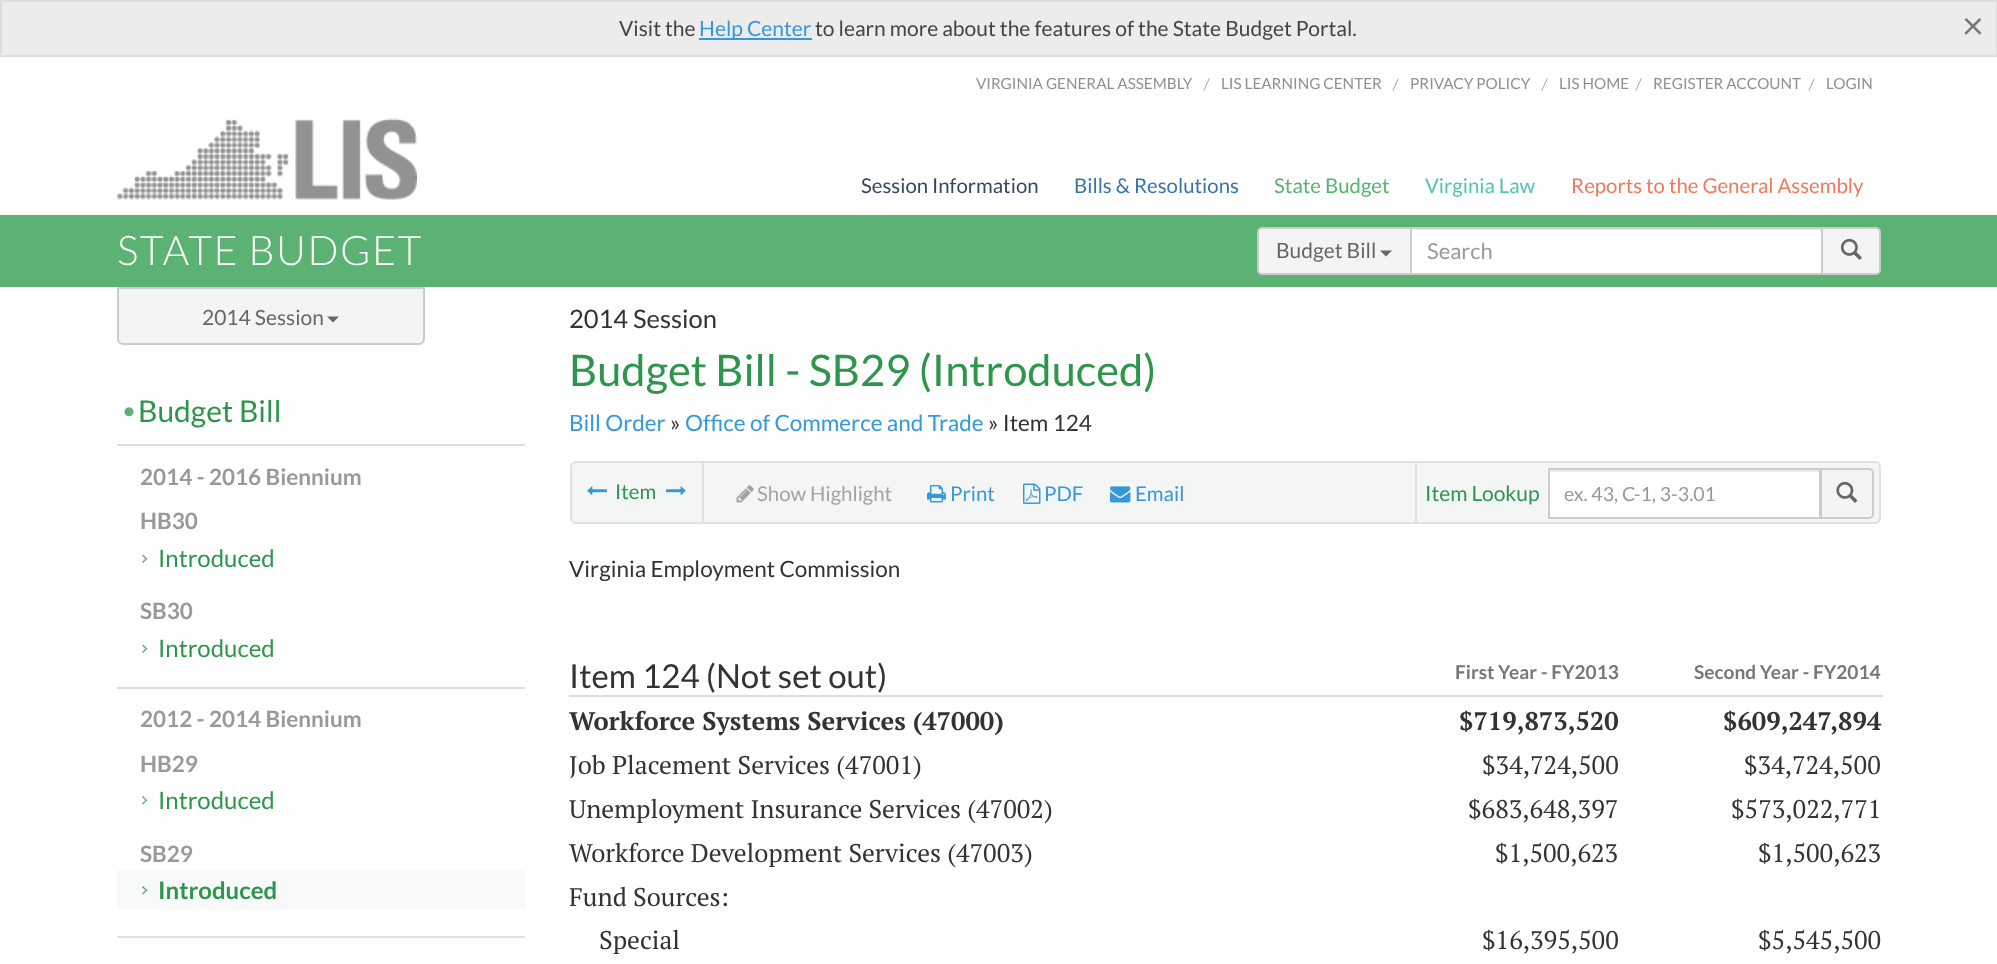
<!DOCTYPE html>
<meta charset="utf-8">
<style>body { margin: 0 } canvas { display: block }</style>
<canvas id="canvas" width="1997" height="964"></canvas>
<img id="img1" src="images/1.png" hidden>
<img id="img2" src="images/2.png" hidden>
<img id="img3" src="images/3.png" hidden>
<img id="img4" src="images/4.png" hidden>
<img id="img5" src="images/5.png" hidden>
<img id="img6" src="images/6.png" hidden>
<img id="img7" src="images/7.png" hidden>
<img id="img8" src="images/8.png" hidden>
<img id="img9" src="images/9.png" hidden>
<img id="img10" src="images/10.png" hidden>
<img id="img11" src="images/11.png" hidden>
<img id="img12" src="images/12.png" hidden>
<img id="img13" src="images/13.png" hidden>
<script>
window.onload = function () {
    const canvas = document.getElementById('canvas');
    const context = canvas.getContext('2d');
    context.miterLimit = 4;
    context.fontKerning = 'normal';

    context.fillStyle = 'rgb(255, 255, 255)';
    context.fillRect(0, 0, 1997, 964);
    context.fillStyle = 'rgb(236, 236, 236)';
    context.beginPath();
    context.rect(1, 1, 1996, 55);
    context.fill();
    context.strokeStyle = 'rgb(217, 224, 218)';
    context.lineWidth = 2;
    context.stroke();
    context.fillStyle = 'rgb(52, 152, 219)';
    context.fillRect(699, 38, 113, 2);
    context.drawImage(document.getElementById('img1'), 117, 118, 300, 82);
    context.fillStyle = 'rgb(91, 178, 114)';
    context.fillRect(0, 215, 1997, 72);
    context.fillStyle = 'rgb(255, 255, 255)';
    context.fillRect(1412, 230, 409, 43);
    context.fillStyle = 'rgb(236, 236, 236)';
    context.fillRect(1412, 229, 409, 1);
    context.strokeStyle = 'rgb(204, 204, 204)';
    context.strokeRect(1411, 228, 411, 46);
    context.fillStyle = 'rgb(243, 245, 245)';
    context.beginPath();
    context.roundRect(1258, 228, 153, 46, [4, 0, 0, 4]);
    context.fill();
    context.stroke();
    context.fillStyle = 'rgb(102, 102, 102)';
    context.beginPath();
    context.moveTo(1380, 250.5);
    context.lineTo(1392, 250.5);
    context.lineTo(1386, 256.5);
    context.closePath();
    context.fill();
    context.fillStyle = 'rgb(243, 245, 245)';
    context.beginPath();
    context.roundRect(1822, 228, 58, 46, [0, 4, 4, 0]);
    context.fill();
    context.stroke();
    context.drawImage(document.getElementById('img2'), 1840, 238, 22, 22);
    context.beginPath();
    context.roundRect(118, 288, 306, 56, [0, 0, 5, 5]);
    context.fill();
    context.stroke();
    context.fillStyle = 'rgb(102, 102, 102)';
    context.beginPath();
    context.moveTo(327, 316.5);
    context.lineTo(339, 316.5);
    context.lineTo(333, 322.5);
    context.closePath();
    context.fill();
    context.fillStyle = 'rgb(222, 226, 227)';
    context.fillRect(117, 936, 408, 2);
    context.drawImage(document.getElementById('img3'), 124, 407, 10, 10);
    context.fillStyle = 'rgb(221, 221, 221)';
    context.fillRect(117, 444, 408, 2);
    context.drawImage(document.getElementById('img4'), 142, 554, 5, 9);
    context.drawImage(document.getElementById('img4'), 142, 644, 5, 9);
    context.fillRect(117, 687, 408, 2);
    context.drawImage(document.getElementById('img5'), 142, 796, 5, 9);
    context.fillStyle = 'rgb(248, 249, 249)';
    context.fillRect(117, 870, 408, 39);
    context.drawImage(document.getElementById('img6'), 142, 886, 5, 9);
    context.fillStyle = 'rgb(244, 245, 245)';
    context.beginPath();
    context.roundRect(571, 462, 1309, 61, 5);
    context.fill();
    context.strokeStyle = 'rgb(222, 226, 227)';
    context.stroke();
    context.fillStyle = 'rgb(222, 226, 227)';
    context.fillRect(702, 462, 2, 60);
    context.drawImage(document.getElementById('img7'), 587, 486, 20, 9);
    context.drawImage(document.getElementById('img8'), 666, 486, 20, 9);
    context.drawImage(document.getElementById('img9'), 736, 485, 18, 18);
    context.drawImage(document.getElementById('img10'), 927, 485, 19, 18);
    context.drawImage(document.getElementById('img11'), 1023, 483, 18, 21);
    context.drawImage(document.getElementById('img12'), 1110, 486, 21, 17);
    context.fillRect(1415, 462, 2, 60);
    context.fillStyle = 'rgb(255, 255, 255)';
    context.fillRect(1550, 472, 269, 45);
    context.fillStyle = 'rgb(236, 236, 236)';
    context.fillRect(1550, 470, 270, 2);
    context.strokeStyle = 'rgb(204, 204, 204)';
    context.strokeRect(1549, 469, 271, 49);
    context.fillStyle = 'rgb(243, 245, 245)';
    context.beginPath();
    context.roundRect(1821, 469, 52, 49, [0, 4, 4, 0]);
    context.fill();
    context.stroke();
    context.drawImage(document.getElementById('img13'), 1836, 481, 22, 22);
    context.fillStyle = 'rgb(221, 221, 221)';
    context.fillRect(569, 695, 1314, 2);
    context.font = '21px Lato';
    context.fillStyle = 'rgb(68, 68, 68)';
    context.fillText('Visit the', 619, 36);
    context.fillStyle = 'rgb(52, 152, 219)';
    context.fillText('Help Center', 699, 36);
    context.fillStyle = 'rgb(68, 68, 68)';
    context.fillText('to learn more about the features of the State Budget Portal.', 815, 36);
    context.font = '38px Lato';
    context.fillStyle = 'rgb(119, 119, 119)';
    context.fillText('×', 1962, 39);
    context.font = '15.25px Lato';
    context.fillStyle = 'rgb(143, 144, 144)';
    context.fillText('VIRGINIA GENERAL ASSEMBLY', 976, 89);
    context.font = '15.25px PT Serif';
    context.fillText('/', 1204, 89);
    context.font = '15.25px Lato';
    context.fillText('LIS LEARNING CENTER', 1221, 89);
    context.font = '15.25px PT Serif';
    context.fillText('/', 1393, 89);
    context.font = '15.25px Lato';
    context.fillText('PRIVACY POLICY', 1410, 89);
    context.font = '15.25px PT Serif';
    context.fillText('/', 1542, 89);
    context.font = '15.25px Lato';
    context.fillText('LIS HOME', 1559, 89);
    context.font = '15.25px PT Serif';
    context.fillText('/', 1636, 89);
    context.font = '15.25px Lato';
    context.fillText('REGISTER ACCOUNT', 1653, 89);
    context.font = '15.25px PT Serif';
    context.fillText('/', 1809, 89);
    context.font = '15.25px Lato';
    context.fillText('LOGIN', 1826, 89);
    context.font = '20.4px Lato';
    context.fillStyle = 'rgb(52, 73, 94)';
    context.fillText('Session Information', 861, 193);
    context.fillStyle = 'rgb(55, 116, 172)';
    context.fillText('Bills & Resolutions', 1074, 193);
    context.fillStyle = 'rgb(87, 179, 111)';
    context.fillText('State Budget', 1274, 193);
    context.fillStyle = 'rgb(79, 198, 172)';
    context.fillText('Virginia Law', 1425, 193);
    context.fillStyle = 'rgb(239, 121, 90)';
    context.fillText('Reports to the General Assembly', 1571, 193);
    context.letterSpacing = '1.5px';
    context.font = '300 40.75px Lato';
    context.fillStyle = 'rgb(255, 255, 255)';
    context.fillText('STATE BUDGET', 117, 265);
    context.letterSpacing = '0px';
    context.font = '21px Lato';
    context.fillStyle = 'rgb(102, 102, 102)';
    context.fillText('Budget Bill', 1276, 258);
    context.font = '22px Lato';
    context.fillStyle = 'rgb(153, 153, 153)';
    context.fillText('Search', 1427, 259);
    context.font = '21px Lato';
    context.fillStyle = 'rgb(102, 102, 102)';
    context.fillText('2014 Session', 202, 325);
    context.font = '30px Lato';
    context.fillStyle = 'rgb(46, 149, 76)';
    context.fillText('Budget Bill', 138, 422);
    context.font = 'bold 22.5px Lato';
    context.fillStyle = 'rgb(153, 153, 153)';
    context.fillText('2014 - 2016 Biennium', 140, 485);
    context.fillText('HB30', 140, 529);
    context.font = '24px Lato';
    context.fillStyle = 'rgb(46, 149, 76)';
    context.fillText('Introduced', 158, 567);
    context.font = 'bold 22.5px Lato';
    context.fillStyle = 'rgb(153, 153, 153)';
    context.fillText('SB30', 140, 619);
    context.font = '24px Lato';
    context.fillStyle = 'rgb(46, 149, 76)';
    context.fillText('Introduced', 158, 657);
    context.font = 'bold 22.5px Lato';
    context.fillStyle = 'rgb(153, 153, 153)';
    context.fillText('2012 - 2014 Biennium', 140, 727);
    context.fillText('HB29', 140, 772);
    context.font = '24px Lato';
    context.fillStyle = 'rgb(46, 149, 76)';
    context.fillText('Introduced', 158, 809);
    context.font = 'bold 22.5px Lato';
    context.fillStyle = 'rgb(153, 153, 153)';
    context.fillText('SB29', 140, 862);
    context.font = 'bold 24px Lato';
    context.fillStyle = 'rgb(46, 149, 76)';
    context.fillText('Introduced', 158, 899);
    context.font = '25.5px Lato';
    context.fillStyle = 'rgb(51, 51, 51)';
    context.fillText('2014 Session', 569, 328);
    context.font = '43.5px Lato';
    context.fillStyle = 'rgb(46, 149, 76)';
    context.fillText('Budget Bill - SB29 (Introduced)', 569, 386);
    context.font = '22.5px Lato';
    context.fillStyle = 'rgb(52, 152, 219)';
    context.fillText('Bill Order', 569, 431);
    context.fillStyle = 'rgb(51, 51, 51)';
    context.fillText('»', 670, 431);
    context.fillStyle = 'rgb(52, 152, 219)';
    context.fillText('Office of Commerce and Trade', 685, 431);
    context.fillStyle = 'rgb(51, 51, 51)';
    context.fillText('» Item 124', 988, 431);
    context.font = '20.4px Lato';
    context.fillStyle = 'rgb(46, 149, 76)';
    context.fillText('Item', 615, 499);
    context.fillStyle = 'rgb(163, 163, 163)';
    context.fillText('Show Highlight', 757, 501);
    context.fillStyle = 'rgb(52, 152, 219)';
    context.fillText('Print', 950, 501);
    context.fillText('PDF', 1044, 501);
    context.fillText('Email', 1135, 501);
    context.font = '21px Lato';
    context.fillStyle = 'rgb(46, 149, 76)';
    context.fillText('Item Lookup', 1425, 501);
    context.font = '19.5px Lato';
    context.fillStyle = 'rgb(153, 153, 153)';
    context.fillText('ex. 43, C-1, 3-3.01', 1564, 501);
    context.font = '22.5px Lato';
    context.fillStyle = 'rgb(51, 51, 51)';
    context.fillText('Virginia Employment Commission', 569, 577);
    context.font = '33px Lato';
    context.fillText('Item 124 (Not set out)', 569, 688);
    context.font = 'bold 19.1px Lato';
    context.fillStyle = 'rgb(119, 119, 119)';
    context.fillText('First Year - FY2013', 1455, 679);
    context.fillText('Second Year - FY2014', 1694, 679);
    context.font = 'bold 25.5px PT Serif';
    context.fillStyle = 'rgb(51, 51, 51)';
    context.fillText('Workforce Systems Services (47000)', 569, 730);
    context.fillText('$719,873,520', 1459, 730);
    context.fillText('$609,247,894', 1723, 730);
    context.font = '25.5px PT Serif';
    context.fillText('Job Placement Services (47001)', 569, 774);
    context.fillText('$34,724,500', 1482, 774);
    context.fillText('$34,724,500', 1744, 774);
    context.fillText('Unemployment Insurance Services (47002)', 569, 818);
    context.fillText('$683,648,397', 1468, 818);
    context.fillText('$573,022,771', 1731, 818);
    context.fillText('Workforce Development Services (47003)', 569, 862);
    context.fillText('$1,500,623', 1495, 862);
    context.fillText('$1,500,623', 1758, 862);
    context.fillText('Fund Sources:', 569, 906);
    context.fillText('Special', 599, 949);
    context.fillText('$16,395,500', 1482, 949);
    context.fillText('$5,545,500', 1758, 949);
};
</script>
